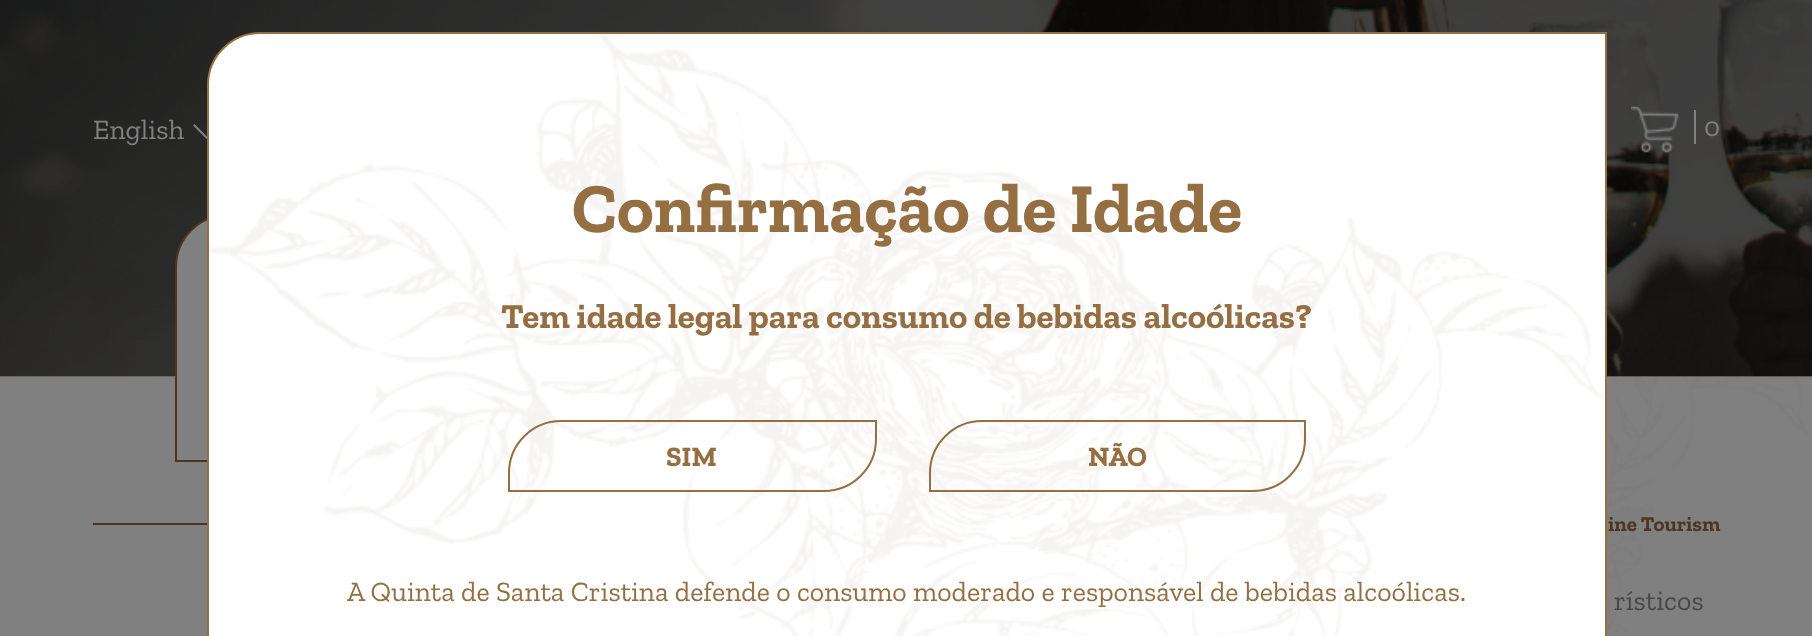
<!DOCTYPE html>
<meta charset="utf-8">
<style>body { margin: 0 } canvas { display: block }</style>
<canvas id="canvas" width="1812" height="636"></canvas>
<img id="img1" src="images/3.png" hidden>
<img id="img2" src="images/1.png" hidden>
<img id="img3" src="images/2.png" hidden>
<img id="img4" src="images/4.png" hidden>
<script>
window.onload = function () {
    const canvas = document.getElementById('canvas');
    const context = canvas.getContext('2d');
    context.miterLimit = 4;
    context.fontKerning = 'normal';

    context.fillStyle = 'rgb(128, 128, 128)';
    context.fillRect(0, 0, 1812, 636);
    context.drawImage(document.getElementById('img1'), 1607, 376, 203, 260);
    context.drawImage(document.getElementById('img2'), 0, 0, 1812, 377);
    context.beginPath();
    context.moveTo(194.5, 124);
    context.lineTo(208, 137.5);
    context.lineTo(206.5, 139);
    context.lineTo(193, 125.5);
    context.closePath();
    context.fill();
    context.drawImage(document.getElementById('img3'), 1631, 106, 48, 47);
    context.fillRect(1694, 110, 2, 34);
    context.fillStyle = 'rgb(75, 55, 33)';
    context.fillRect(93, 523, 114, 2);
    context.fillStyle = 'rgb(128, 128, 128)';
    context.beginPath();
    context.roundRect(176, 215, 523, 246, [52, 0, 52, 0]);
    context.fill();
    context.strokeStyle = 'rgb(75, 55, 33)';
    context.lineWidth = 2;
    context.stroke();
    context.fillStyle = 'rgb(255, 255, 255)';
    context.beginPath();
    context.moveTo(259, 33);
    context.lineTo(1605, 33);
    context.lineTo(1605, 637);
    context.lineTo(208, 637);
    context.lineTo(208, 84);
    context.bezierCurveTo(208, 56, 231, 33, 259, 33);
    context.closePath();
    context.fill();
    context.drawImage(document.getElementById('img4'), 209, 34, 1395, 602);
    context.beginPath();
    context.moveTo(260, 33);
    context.lineTo(1606, 33);
    context.lineTo(1606, 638);
    context.bezierCurveTo(1606, 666.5, 1582.5, 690, 1554, 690);
    context.lineTo(208, 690);
    context.lineTo(208, 85);
    context.bezierCurveTo(208, 56.5, 231.5, 33, 260, 33);
    context.closePath();
    context.strokeStyle = 'rgb(149, 110, 65)';
    context.stroke();
    context.beginPath();
    context.roundRect(509, 421, 367, 70, [52, 0, 52, 0]);
    context.stroke();
    context.beginPath();
    context.roundRect(930, 421, 375, 70, [52, 0, 52, 0]);
    context.stroke();
    context.font = '28px Zilla Slab';
    context.fillStyle = 'rgb(128, 128, 128)';
    context.fillText('English', 93, 139);
    context.fillText('0', 1704, 136);
    context.font = 'bold 21px Zilla Slab';
    context.fillStyle = 'rgb(75, 55, 33)';
    context.fillText('ine Tourism', 1608, 531);
    context.font = '28px Zilla Slab';
    context.fillStyle = 'rgb(71, 71, 70)';
    context.fillText('rísticos', 1614, 610);
    context.font = 'bold 70px Zilla Slab';
    context.fillStyle = 'rgb(149, 110, 65)';
    context.fillText('Confirmação de Idade', 572, 232);
    context.font = 'bold 35px Zilla Slab';
    context.fillText('Tem idade legal para consumo de bebidas alcoólicas?', 501, 328);
    context.font = 'bold 28px Zilla Slab';
    context.fillText('SIM', 666, 466);
    context.fillText('NÃO', 1088, 466);
    context.font = '28px Zilla Slab';
    context.fillText('A Quinta de Santa Cristina defende o consumo moderado e responsável de bebidas alcoólicas.', 347, 601);
};
</script>
